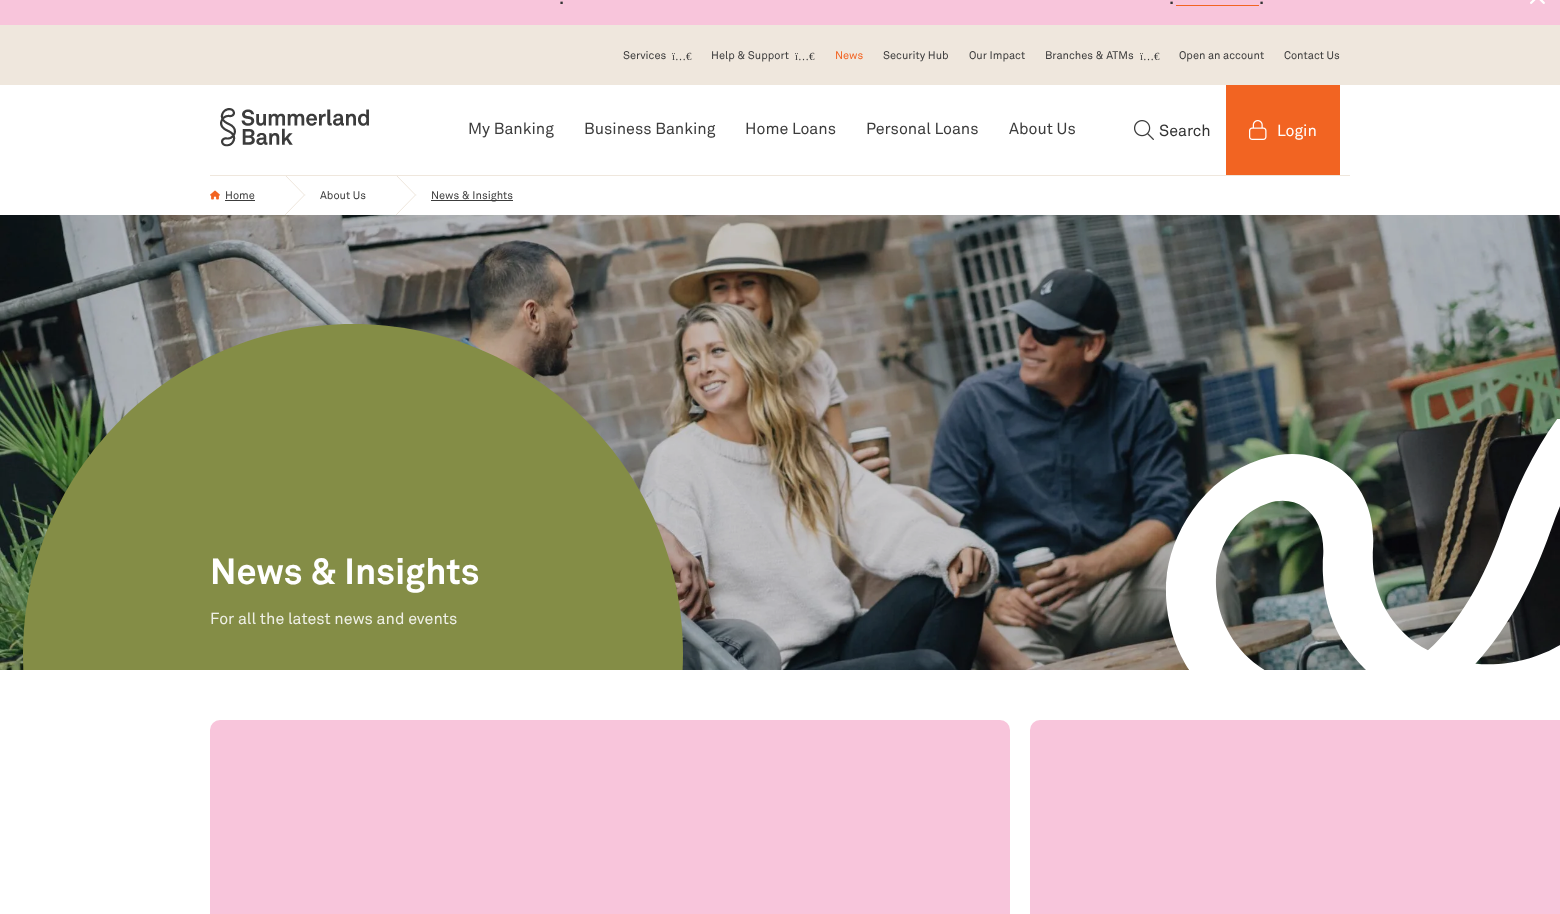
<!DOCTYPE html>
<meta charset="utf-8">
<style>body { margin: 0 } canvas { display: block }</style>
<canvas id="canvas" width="1560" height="914"></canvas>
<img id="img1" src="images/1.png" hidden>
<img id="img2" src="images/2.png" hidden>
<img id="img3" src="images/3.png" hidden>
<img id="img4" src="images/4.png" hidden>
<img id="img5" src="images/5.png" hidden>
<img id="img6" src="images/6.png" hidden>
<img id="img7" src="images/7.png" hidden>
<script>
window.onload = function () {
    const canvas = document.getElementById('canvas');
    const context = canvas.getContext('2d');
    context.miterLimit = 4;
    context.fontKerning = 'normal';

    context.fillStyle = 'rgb(255, 255, 255)';
    context.fillRect(0, 0, 1560, 914);
    context.fillStyle = 'rgb(248, 197, 219)';
    context.fillRect(0, 0, 1560, 25);
    context.fillStyle = 'rgb(242, 100, 34)';
    context.fillRect(1176, 5, 83, 1);
    context.drawImage(document.getElementById('img1'), 1530, 0, 15, 4);
    context.fillStyle = 'rgb(239, 231, 221)';
    context.fillRect(0, 25, 1560, 60);
    context.fillRect(210, 175, 1140, 1);
    context.drawImage(document.getElementById('img2'), 220, 108, 149, 39);
    context.drawImage(document.getElementById('img3'), 1134, 120, 20, 20);
    context.fillStyle = 'rgb(242, 100, 34)';
    context.fillRect(1226, 85, 114, 90);
    context.drawImage(document.getElementById('img4'), 1249, 120, 18, 20);
    context.drawImage(document.getElementById('img5'), 210, 190, 10, 10);
    context.fillStyle = 'rgb(60, 60, 60)';
    context.fillRect(225, 200, 30, 1);
    context.beginPath();
    context.moveTo(304.5, 195);
    context.lineTo(285.5, 175.5);
    context.moveTo(304.5, 195);
    context.lineTo(285.5, 214.5);
    context.strokeStyle = 'rgb(239, 231, 221)';
    context.lineCap = 'round';
    context.stroke();
    context.beginPath();
    context.moveTo(415.5, 195);
    context.lineTo(396.5, 175.5);
    context.moveTo(415.5, 195);
    context.lineTo(396.5, 214.5);
    context.stroke();
    context.fillRect(431, 200, 82, 1);
    context.drawImage(document.getElementById('img6'), 0, 215, 1560, 455);
    context.save();
    context.beginPath();
    context.rect(23, 324, 660, 346);
    context.clip();
    context.fillStyle = 'rgb(132, 141, 70)';
    context.beginPath();
    context.moveTo(683, 654);
    context.bezierCurveTo(683, 836, 535, 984, 353, 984);
    context.bezierCurveTo(171, 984, 23, 836, 23, 654);
    context.bezierCurveTo(23, 472, 171, 324, 353, 324);
    context.bezierCurveTo(535, 324, 683, 472, 683, 654);
    context.fill();
    context.restore();
    context.drawImage(document.getElementById('img7'), 1165, 419, 395, 251);
    context.fillStyle = 'rgb(248, 197, 219)';
    context.beginPath();
    context.roundRect(210, 720, 800, 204, 10);
    context.fill();
    context.beginPath();
    context.roundRect(1030, 720, 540, 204, 10);
    context.fill();
    context.font = 'bold 16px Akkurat';
    context.fillStyle = 'rgb(51, 51, 51)';
    context.fillText('.', 559, 4);
    context.fillText('.', 1169, 4);
    context.fillText('.', 1259, 4);
    context.font = '11px Akkurat';
    context.fillStyle = 'rgb(60, 60, 60)';
    context.fillText('Services', 623, 59);
    context.font = '11px Liberation Serif';
    context.fillText('ï…€', 672, 60);
    context.font = '11px Akkurat';
    context.fillText('Help & Support', 711, 59);
    context.font = '11px Liberation Serif';
    context.fillText('ï…€', 795, 60);
    context.font = '11px Akkurat';
    context.fillStyle = 'rgb(242, 100, 34)';
    context.fillText('News', 835, 59);
    context.fillStyle = 'rgb(60, 60, 60)';
    context.fillText('Security Hub', 883, 59);
    context.fillText('Our Impact', 969, 59);
    context.fillText('Branches & ATMs', 1045, 59);
    context.font = '11px Liberation Serif';
    context.fillText('ï…€', 1140, 60);
    context.font = '11px Akkurat';
    context.fillText('Open an account', 1179, 59);
    context.fillText('Contact Us', 1284, 59);
    context.font = '16px Akkurat';
    context.fillText('My Banking', 468, 134);
    context.fillText('Business Banking', 584, 134);
    context.fillText('Home Loans', 745, 134);
    context.fillText('Personal Loans', 866, 134);
    context.fillText('About Us', 1009, 134);
    context.fillStyle = 'rgb(51, 51, 51)';
    context.fillText('Search', 1159, 136);
    context.fillStyle = 'rgb(255, 255, 255)';
    context.fillText('Login', 1277, 136);
    context.font = '11px Akkurat';
    context.fillStyle = 'rgb(60, 60, 60)';
    context.fillText('Home', 225, 199);
    context.fillText('About Us', 320, 199);
    context.fillText('News & Insights', 431, 199);
    context.font = 'bold 36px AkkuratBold';
    context.fillStyle = 'rgb(255, 255, 255)';
    context.fillText('News & Insights', 210, 584);
    context.font = '16px Akkurat';
    context.fillStyle = 'rgb(239, 240, 231)';
    context.fillText('For all the latest news and events', 210, 624);
};
</script>
